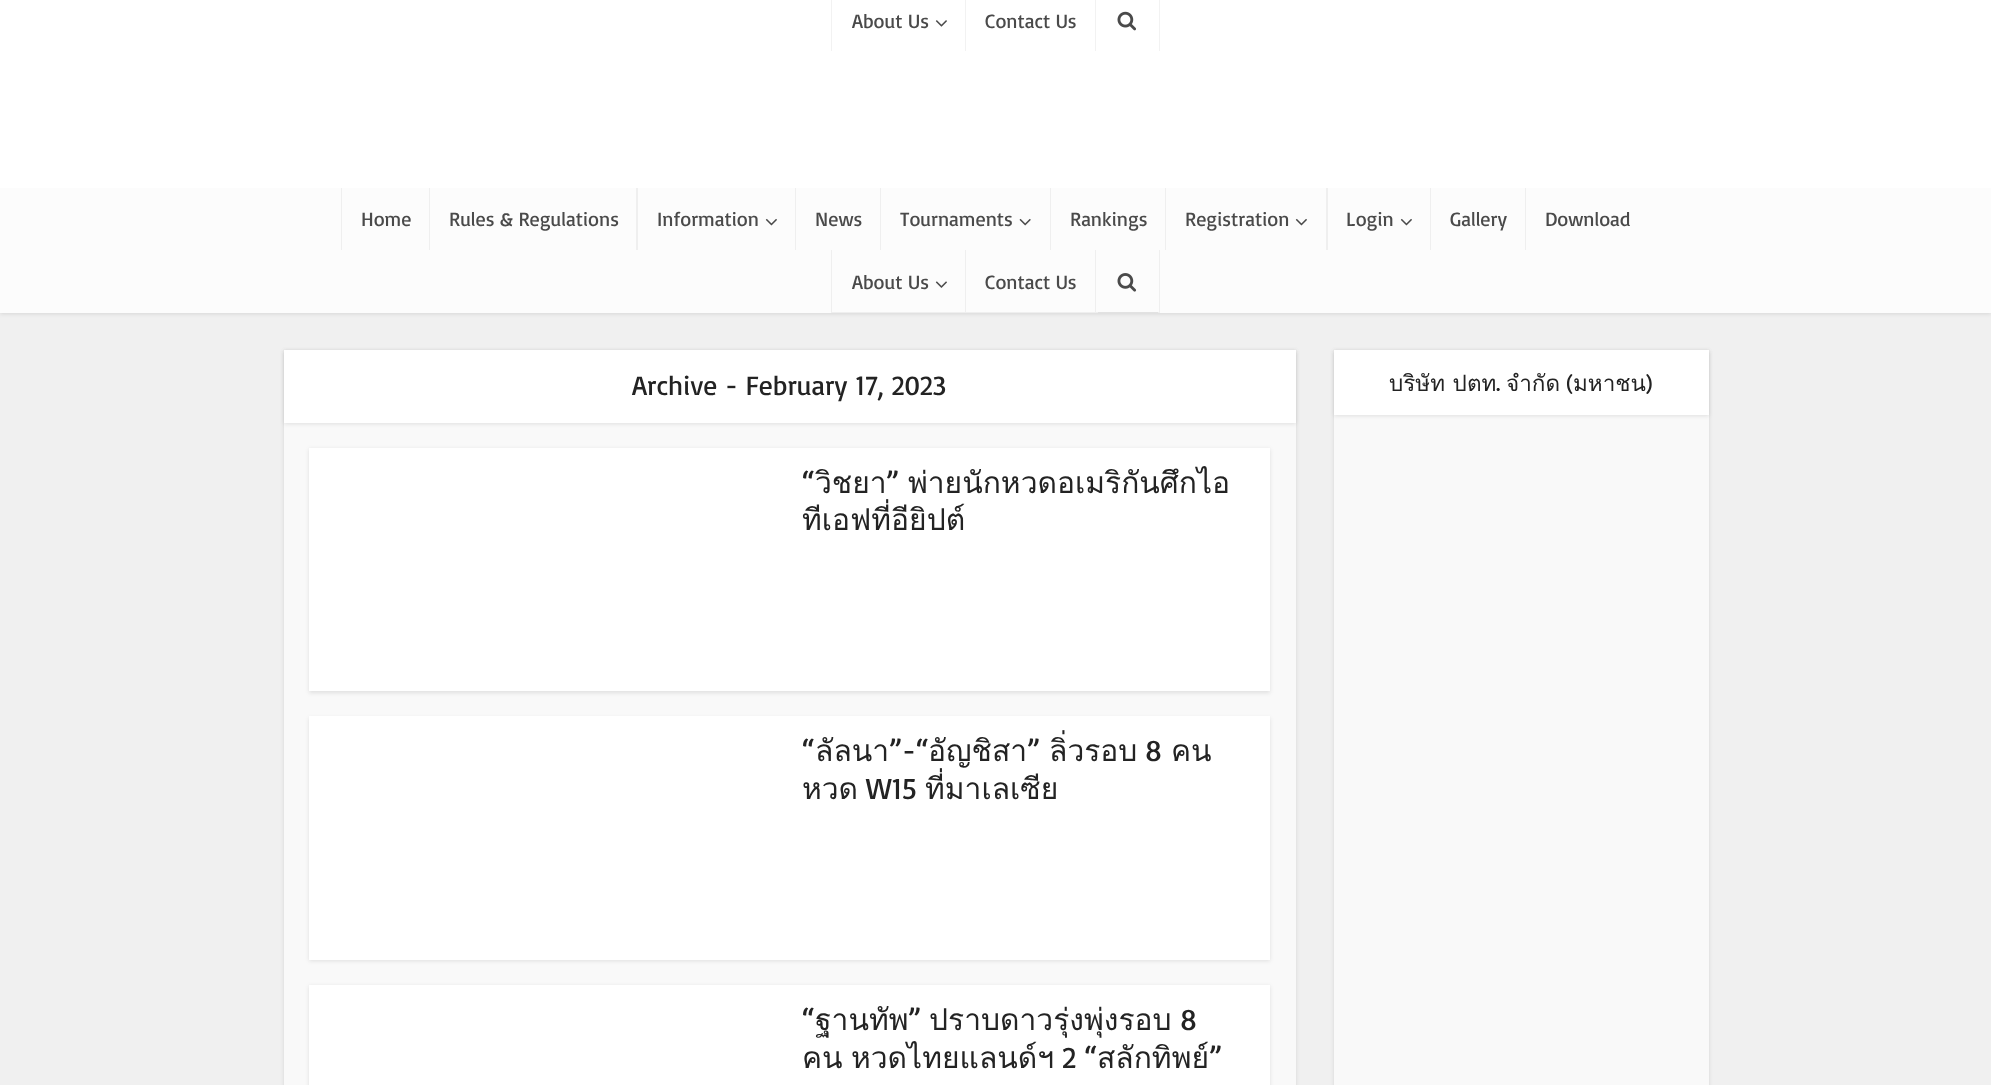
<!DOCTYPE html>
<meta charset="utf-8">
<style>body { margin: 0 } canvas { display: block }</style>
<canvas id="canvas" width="1991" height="1085"></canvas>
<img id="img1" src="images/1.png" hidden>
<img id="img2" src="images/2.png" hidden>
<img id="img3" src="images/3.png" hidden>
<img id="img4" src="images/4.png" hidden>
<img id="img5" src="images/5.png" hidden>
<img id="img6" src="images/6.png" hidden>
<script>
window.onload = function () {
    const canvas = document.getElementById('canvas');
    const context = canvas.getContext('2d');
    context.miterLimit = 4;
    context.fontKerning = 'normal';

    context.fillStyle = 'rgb(240, 240, 240)';
    context.fillRect(0, 0, 1991, 1085);
    context.fillStyle = 'rgba(0, 0, 0, 0.1)';
    context.filter = 'blur(2px)';
    context.beginPath();
    context.rect(0, 1, 1991, 313);
    context.fill();
    context.filter = 'none';
    context.fillStyle = 'rgb(255, 255, 255)';
    context.fillRect(0, 0, 1991, 188);
    context.fillStyle = 'rgb(242, 242, 242)';
    context.fillRect(831, 0, 1, 51);
    context.drawImage(document.getElementById('img1'), 935, 20, 12, 7);
    context.fillRect(965, 0, 1, 51);
    context.fillRect(1159, 0, 1, 51);
    context.fillRect(1095, 0, 1, 51);
    context.drawImage(document.getElementById('img2'), 1117, 11, 19, 20);
    context.fillStyle = 'rgb(252, 252, 252)';
    context.fillRect(0, 188, 1991, 125);
    context.fillStyle = 'rgb(239, 239, 239)';
    context.fillRect(341, 188, 1, 62);
    context.fillRect(429, 188, 1, 62);
    context.fillRect(636, 188, 2, 62);
    context.drawImage(document.getElementById('img3'), 765, 218, 12, 8);
    context.fillRect(795, 188, 1, 62);
    context.fillRect(880, 188, 1, 62);
    context.drawImage(document.getElementById('img4'), 1019, 218, 12, 8);
    context.fillRect(1050, 188, 1, 62);
    context.fillRect(1165, 188, 1, 62);
    context.drawImage(document.getElementById('img3'), 1295, 218, 12, 8);
    context.fillRect(1326, 188, 2, 62);
    context.drawImage(document.getElementById('img3'), 1400, 218, 12, 8);
    context.fillRect(1430, 188, 1, 62);
    context.fillRect(1525, 188, 1, 62);
    context.beginPath();
    context.moveTo(831, 250);
    context.lineTo(831, 313);
    context.lineTo(965, 313);
    context.lineTo(965, 312);
    context.lineTo(832, 312);
    context.lineTo(832, 250);
    context.closePath();
    context.fill();
    context.drawImage(document.getElementById('img5'), 935, 281, 12, 7);
    context.beginPath();
    context.moveTo(965, 250);
    context.lineTo(965, 313);
    context.lineTo(1095, 313);
    context.lineTo(1095, 312);
    context.lineTo(966, 312);
    context.lineTo(966, 250);
    context.closePath();
    context.fill();
    context.beginPath();
    context.moveTo(1098, 312);
    context.lineTo(1098, 313);
    context.lineTo(1160, 313);
    context.lineTo(1160, 250);
    context.lineTo(1159, 250);
    context.lineTo(1159, 312);
    context.closePath();
    context.fill();
    context.fillStyle = 'rgba(0, 0, 0, 0.05)';
    context.beginPath();
    context.moveTo(1095, 250);
    context.lineTo(1095, 313);
    context.lineTo(1158, 313);
    context.lineTo(1158, 312);
    context.lineTo(1096, 312);
    context.lineTo(1096, 250);
    context.closePath();
    context.fill();
    context.drawImage(document.getElementById('img6'), 1117, 273, 20, 19);
    context.fillStyle = 'rgba(0, 0, 0, 0.1)';
    context.filter = 'blur(2px)';
    context.beginPath();
    context.rect(284, 351, 1012, 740);
    context.fill();
    context.filter = 'none';
    context.fillStyle = 'rgb(249, 249, 249)';
    context.fillRect(284, 423, 1012, 662);
    context.fillStyle = 'rgba(0, 0, 0, 0.1)';
    context.filter = 'blur(2px)';
    context.beginPath();
    context.rect(284, 351, 1012, 73);
    context.fill();
    context.filter = 'none';
    context.fillStyle = 'rgb(255, 255, 255)';
    context.fillRect(284, 350, 1012, 73);
    context.fillStyle = 'rgba(0, 0, 0, 0.1)';
    context.filter = 'blur(2px)';
    context.beginPath();
    context.rect(309, 449, 961, 244);
    context.fill();
    context.filter = 'none';
    context.fillStyle = 'rgb(255, 255, 255)';
    context.fillRect(309, 448, 961, 243);
    context.fillStyle = 'rgba(0, 0, 0, 0.1)';
    context.filter = 'blur(2px)';
    context.beginPath();
    context.rect(309, 718, 961, 243);
    context.fill();
    context.filter = 'none';
    context.fillStyle = 'rgb(255, 255, 255)';
    context.fillRect(309, 716, 961, 244);
    context.fillStyle = 'rgba(0, 0, 0, 0.1)';
    context.filter = 'blur(2px)';
    context.beginPath();
    context.rect(309, 986, 961, 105);
    context.fill();
    context.filter = 'none';
    context.fillStyle = 'rgb(255, 255, 255)';
    context.fillRect(309, 985, 961, 100);
    context.fillStyle = 'rgba(0, 0, 0, 0.1)';
    context.filter = 'blur(2px)';
    context.beginPath();
    context.rect(1334, 351, 375, 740);
    context.fill();
    context.filter = 'none';
    context.fillStyle = 'rgb(249, 249, 249)';
    context.fillRect(1334, 415, 375, 670);
    context.fillStyle = 'rgba(0, 0, 0, 0.1)';
    context.filter = 'blur(2px)';
    context.beginPath();
    context.rect(1334, 351, 375, 65);
    context.fill();
    context.filter = 'none';
    context.fillStyle = 'rgb(255, 255, 255)';
    context.fillRect(1334, 350, 375, 65);
    context.font = '20px Basic';
    context.fillStyle = 'rgb(74, 74, 74)';
    context.fillText('About Us', 852, 28);
    context.fillText('Contact Us', 985, 28);
    context.fillText('Home', 361, 226);
    context.fillText('Rules & Regulations', 449, 226);
    context.fillText('Information', 657, 226);
    context.fillText('News', 815, 226);
    context.fillText('Tournaments', 900, 226);
    context.fillText('Rankings', 1070, 226);
    context.fillText('Registration', 1185, 226);
    context.fillText('Login', 1346, 226);
    context.fillText('Gallery', 1450, 226);
    context.fillText('Download', 1545, 226);
    context.fillText('About Us', 852, 289);
    context.fillText('Contact Us', 985, 289);
    context.font = '27.5px Basic';
    context.fillStyle = 'rgb(35, 35, 35)';
    context.fillText('Archive - February 17, 2023', 632, 395);
    context.font = '30px Loma';
    context.fillText('พ่ายนักหวดอเมริกันศึกไอ', 908, 493);
    context.font = '30px Basic';
    context.fillText('“', 802, 493);
    context.font = '30px Loma';
    context.fillText('วิชยา', 815, 493);
    context.font = '30px Basic';
    context.fillText('”', 886, 493);
    context.font = '30px Loma';
    context.fillText('ทีเอฟที่อียิปต์', 802, 530);
    context.font = '30px Basic';
    context.fillText('“', 802, 761);
    context.font = '30px Loma';
    context.fillText('ลัลนา', 815, 761);
    context.font = '30px Basic';
    context.fillText('”-“', 889, 761);
    context.font = '30px Loma';
    context.fillText('อัญชิสา', 928, 761);
    context.font = '30px Basic';
    context.fillText('”', 1027, 761);
    context.font = '30px Loma';
    context.fillText('ลิ่วรอบ', 1049, 761);
    context.font = '30px Basic';
    context.fillText('8', 1145, 761);
    context.font = '30px Loma';
    context.fillText('คน', 1171, 761);
    context.fillText('หวด', 802, 799);
    context.font = '30px Basic';
    context.fillText('W15', 866, 799);
    context.font = '30px Loma';
    context.fillText('ที่มาเลเซีย', 925, 799);
    context.font = '30px Basic';
    context.fillText('“', 802, 1030);
    context.font = '30px Loma';
    context.fillText('ฐานทัพ', 815, 1030);
    context.font = '30px Basic';
    context.fillText('”', 908, 1030);
    context.font = '30px Loma';
    context.fillText('ปราบดาวรุ่งพุ่งรอบ', 929, 1030);
    context.font = '30px Basic';
    context.fillText('8', 1180, 1030);
    context.font = '30px Loma';
    context.fillText('หวดไทยแลนด์ฯ', 851, 1068);
    context.font = '30px Basic';
    context.fillText('2 “', 1062, 1068);
    context.font = '30px Loma';
    context.fillText('สลักทิพย์', 1097, 1068);
    context.font = '30px Basic';
    context.fillText('”', 1209, 1068);
    context.font = '30px Loma';
    context.fillText('คน', 802, 1068);
    context.font = '22.5px Loma';
    context.fillText('บริษัท ปตท', 1389, 391);
    context.font = '22.5px Basic';
    context.fillText('.', 1496, 391);
    context.font = '22.5px Loma';
    context.fillText('จำกัด', 1506, 391);
    context.font = '22.5px Basic';
    context.fillText('(', 1566, 391);
    context.font = '22.5px Loma';
    context.fillText('มหาชน', 1573, 391);
    context.font = '22.5px Basic';
    context.fillText(')', 1646, 391);
};
</script>
